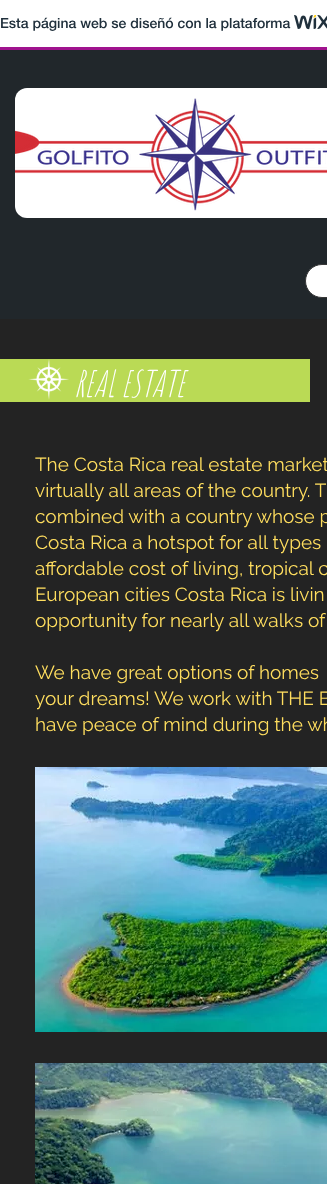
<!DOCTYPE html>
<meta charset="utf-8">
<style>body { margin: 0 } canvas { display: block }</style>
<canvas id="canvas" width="327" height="1184"></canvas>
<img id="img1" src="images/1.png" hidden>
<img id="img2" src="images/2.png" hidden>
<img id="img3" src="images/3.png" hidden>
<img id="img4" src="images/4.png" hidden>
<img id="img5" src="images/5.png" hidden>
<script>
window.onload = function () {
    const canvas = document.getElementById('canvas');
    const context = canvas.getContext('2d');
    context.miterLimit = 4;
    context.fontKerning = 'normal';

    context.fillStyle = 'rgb(255, 255, 255)';
    context.fillRect(0, 0, 327, 1184);
    context.fillStyle = 'rgb(160, 19, 142)';
    context.fillRect(0, 47, 327, 3);
    context.drawImage(document.getElementById('img1'), 294, 15, 33, 15);
    context.fillStyle = 'rgb(33, 39, 43)';
    context.fillRect(0, 50, 327, 269);
    context.fillStyle = 'rgb(255, 255, 255)';
    context.beginPath();
    context.roundRect(15, 88, 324, 130, 12);
    context.fill();
    context.drawImage(document.getElementById('img2'), 15, 98, 312, 113);
    context.beginPath();
    context.roundRect(305.5, 264.5, 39, 33, 16.5);
    context.fill();
    context.strokeStyle = 'rgb(56, 56, 56)';
    context.stroke();
    context.fillStyle = 'rgb(35, 35, 35)';
    context.fillRect(0, 319, 327, 865);
    context.fillStyle = 'rgb(186, 218, 85)';
    context.fillRect(0, 359, 310, 43);
    context.drawImage(document.getElementById('img3'), 28, 359, 41, 41);
    context.drawImage(document.getElementById('img4'), 35, 767, 292, 265);
    context.drawImage(document.getElementById('img5'), 35, 1063, 292, 121);
    context.font = '500 14px "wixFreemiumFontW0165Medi"';
    context.fillStyle = 'rgb(32, 48, 60)';
    context.fillText('Esta página web se diseñó con la plataforma', 0, 28);
    context.font = 'italic 36px Amatic SC';
    context.fillStyle = 'rgb(255, 255, 255)';
    context.fillText('REAL ESTATE', 74, 397);
    context.font = '19px Raleway';
    context.fillStyle = 'rgb(255, 222, 95)';
    context.fillText('The Costa Rica real estate market', 35, 471);
    context.fillText('virtually all areas of the country. T', 35, 497);
    context.fillText('combined with a country whose p', 35, 523);
    context.fillText('Costa Rica a hotspot for all types', 35, 549);
    context.fillText('affordable cost of living, tropical c', 35, 575);
    context.fillText('European cities Costa Rica is livin', 35, 601);
    context.fillText('opportunity for nearly all walks of', 35, 627);
    context.fillText('We have great options of homes', 35, 679);
    context.fillText('your dreams! We work with THE B', 35, 705);
    context.fillText('have peace of mind during the wh', 35, 731);
};
</script>
